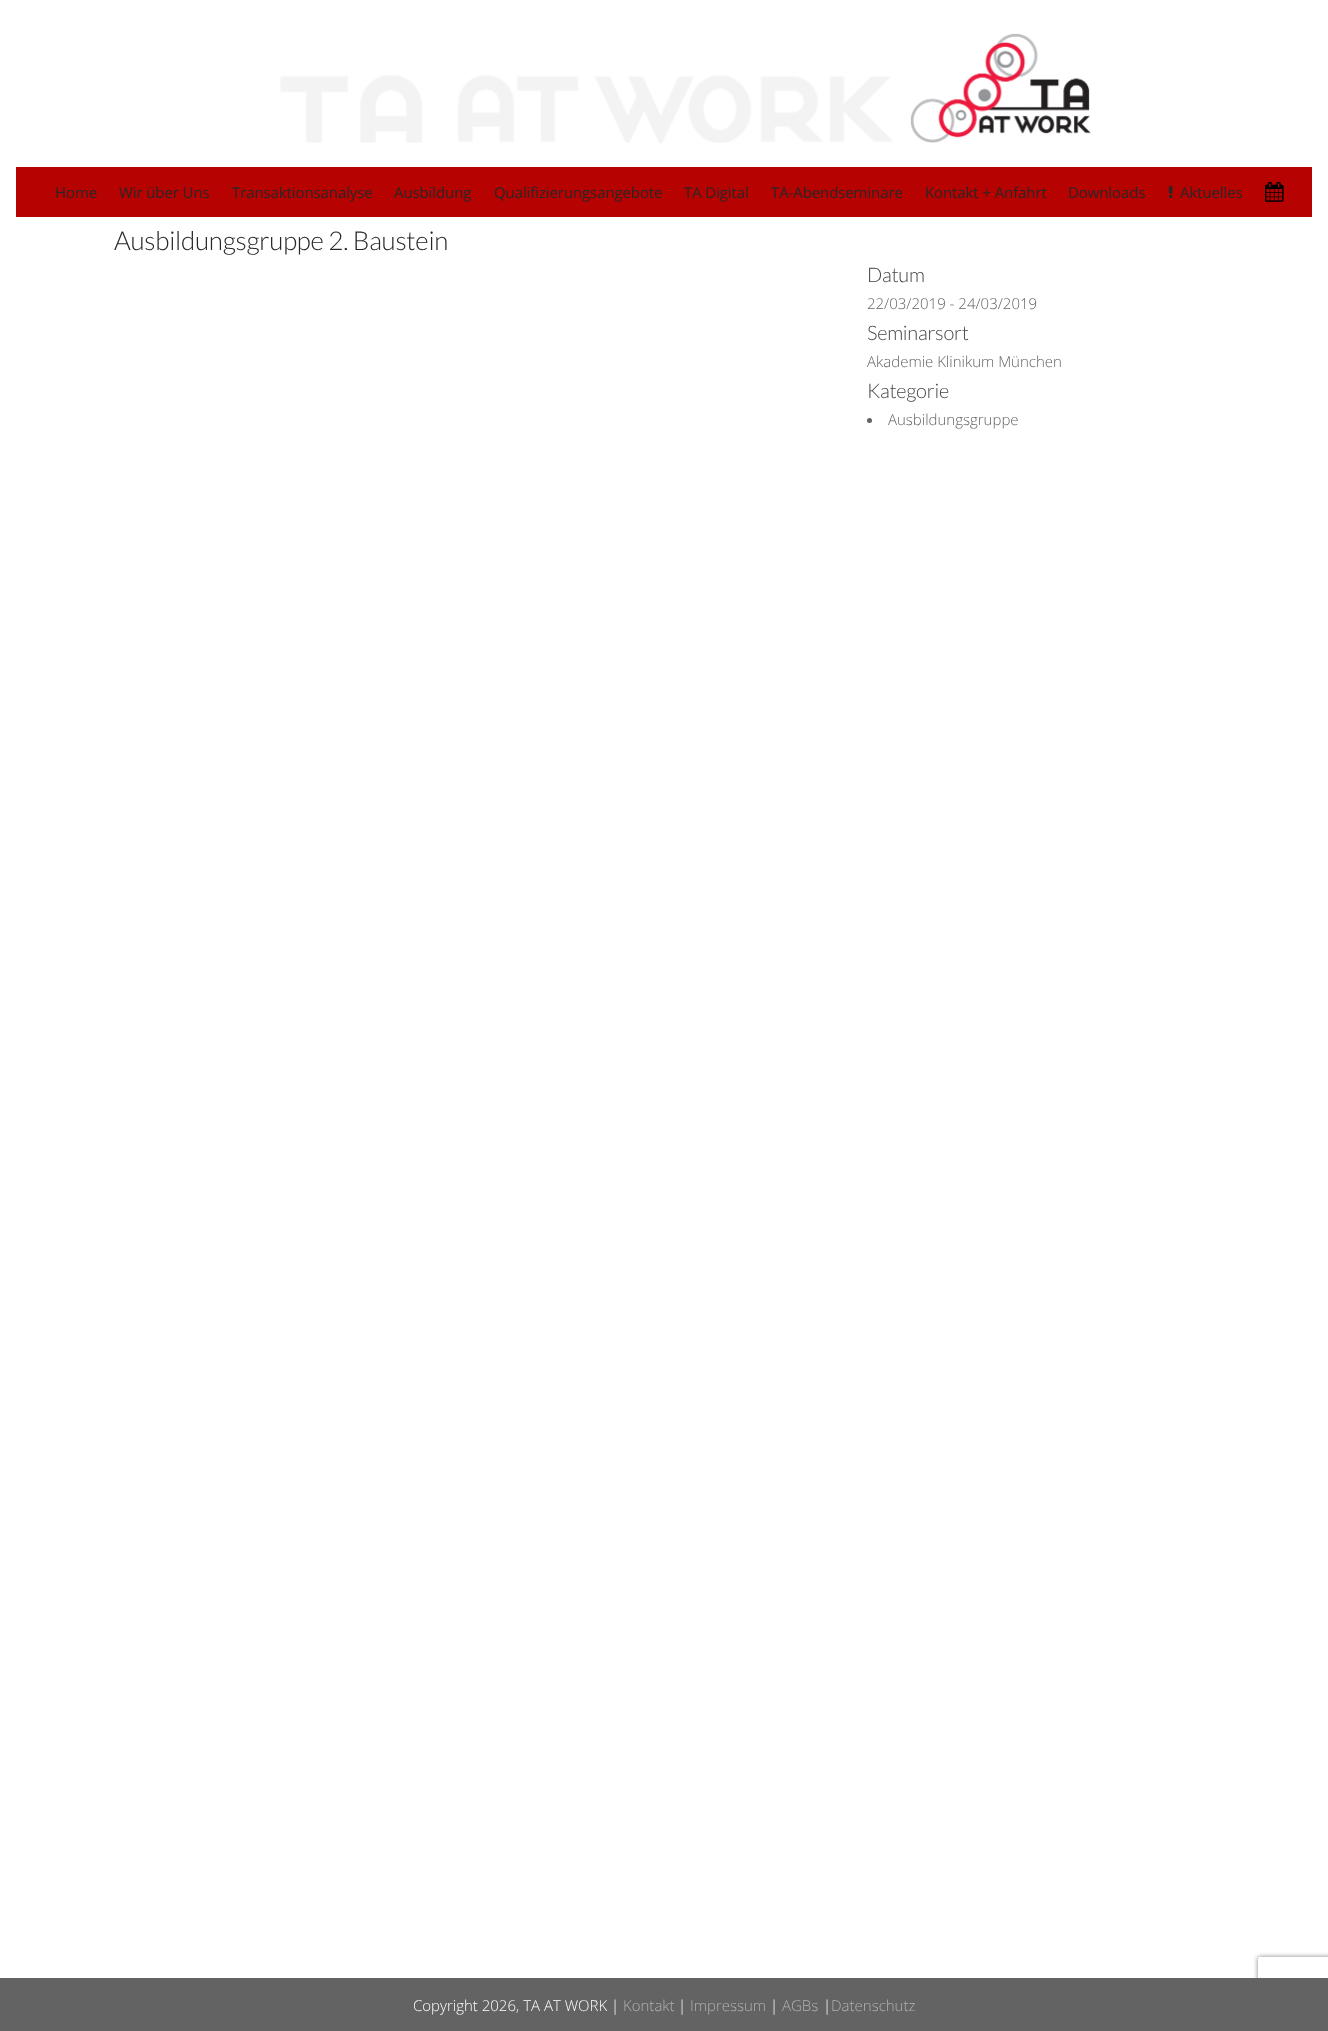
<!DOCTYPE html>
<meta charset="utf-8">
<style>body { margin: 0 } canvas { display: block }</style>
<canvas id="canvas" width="1328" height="2031"></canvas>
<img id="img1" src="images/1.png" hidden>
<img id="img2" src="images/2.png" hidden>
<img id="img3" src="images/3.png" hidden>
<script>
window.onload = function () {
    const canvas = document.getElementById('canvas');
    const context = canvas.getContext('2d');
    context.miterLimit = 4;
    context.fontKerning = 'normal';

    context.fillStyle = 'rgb(255, 255, 255)';
    context.fillRect(0, 0, 1328, 2031);
    context.drawImage(document.getElementById('img1'), 280, 33, 811, 110);
    context.fillStyle = 'rgb(182, 2, 1)';
    context.fillRect(16, 167, 1296, 50);
    context.drawImage(document.getElementById('img2'), 1168, 186, 5, 12);
    context.drawImage(document.getElementById('img3'), 1265, 181, 19, 21);
    context.fillStyle = 'rgb(99, 99, 99)';
    context.beginPath();
    context.arc(869.5, 420.5, 2.5, 0, 2 * Math.PI);
    context.fill();
    context.save();
    context.beginPath();
    context.moveTo(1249, 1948);
    context.lineTo(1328, 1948);
    context.lineTo(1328, 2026);
    context.lineTo(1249, 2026);
    context.closePath();
    context.moveTo(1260, 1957);
    context.lineTo(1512, 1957);
    context.bezierCurveTo(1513, 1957, 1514, 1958, 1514, 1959);
    context.lineTo(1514, 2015);
    context.bezierCurveTo(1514, 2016, 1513, 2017, 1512, 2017);
    context.lineTo(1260, 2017);
    context.bezierCurveTo(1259, 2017, 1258, 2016, 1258, 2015);
    context.lineTo(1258, 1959);
    context.bezierCurveTo(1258, 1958, 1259, 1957, 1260, 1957);
    context.closePath();
    context.clip('evenodd');
    context.fillStyle = 'rgb(128, 128, 128)';
    context.filter = 'blur(2.5px)';
    context.beginPath();
    context.roundRect(1258, 1957, 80, 60, 2);
    context.fill();
    context.filter = 'none';
    context.restore();
    context.fillRect(0, 1978, 1328, 53);
    context.letterSpacing = '-0.1px';
    context.font = '15px Open Sans';
    context.fillStyle = 'rgb(39, 39, 39)';
    context.fillText('Home', 55, 198);
    context.fillText('Wir über Uns', 119, 198);
    context.fillText('Transaktionsanalyse', 232, 198);
    context.fillText('Ausbildung', 394, 198);
    context.fillText('Qualifizierungsangebote', 494, 198);
    context.fillText('TA Digital', 684, 198);
    context.fillText('TA-Abendseminare', 771, 198);
    context.fillText('Kontakt + Anfahrt', 925, 198);
    context.fillText('Downloads', 1068, 198);
    context.fillText('Aktuelles', 1180, 198);
    context.letterSpacing = '-0.25px';
    context.font = '300 26px Lato';
    context.fillText('Ausbildungsgruppe 2. Baustein', 114, 250);
    context.font = '300 20px Lato';
    context.fillStyle = 'rgb(70, 70, 70)';
    context.fillText('Datum', 867, 282);
    context.letterSpacing = '0px';
    context.font = '300 15px Open Sans';
    context.fillStyle = 'rgb(99, 99, 99)';
    context.fillText('22/03/2019 - 24/03/2019', 867, 309);
    context.letterSpacing = '-0.25px';
    context.font = '300 20px Lato';
    context.fillStyle = 'rgb(70, 70, 70)';
    context.fillText('Seminarsort', 867, 340);
    context.letterSpacing = '0px';
    context.font = '300 15px Open Sans';
    context.fillStyle = 'rgb(99, 99, 99)';
    context.fillText('Akademie Klinikum München', 867, 367);
    context.letterSpacing = '-0.25px';
    context.font = '300 20px Lato';
    context.fillStyle = 'rgb(70, 70, 70)';
    context.fillText('Kategorie', 867, 398);
    context.letterSpacing = '0px';
    context.font = '300 15px Open Sans';
    context.fillStyle = 'rgb(99, 99, 99)';
    context.fillText('Ausbildungsgruppe', 888, 425);
    context.fillStyle = 'rgb(255, 255, 255)';
    context.fillText('Copyright 2026‚ TA AT WORK |', 413, 2011);
    context.fillStyle = 'rgb(177, 177, 177)';
    context.fillText('Kontakt', 623, 2011);
    context.fillStyle = 'rgb(255, 255, 255)';
    context.fillText('|', 678, 2011);
    context.fillStyle = 'rgb(177, 177, 177)';
    context.fillText('Impressum', 690, 2011);
    context.fillStyle = 'rgb(255, 255, 255)';
    context.fillText('|', 770, 2011);
    context.fillStyle = 'rgb(177, 177, 177)';
    context.fillText('AGBs', 782, 2011);
    context.fillStyle = 'rgb(255, 255, 255)';
    context.fillText('|', 823, 2011);
    context.fillStyle = 'rgb(177, 177, 177)';
    context.fillText('Datenschutz', 831, 2011);
};
</script>
